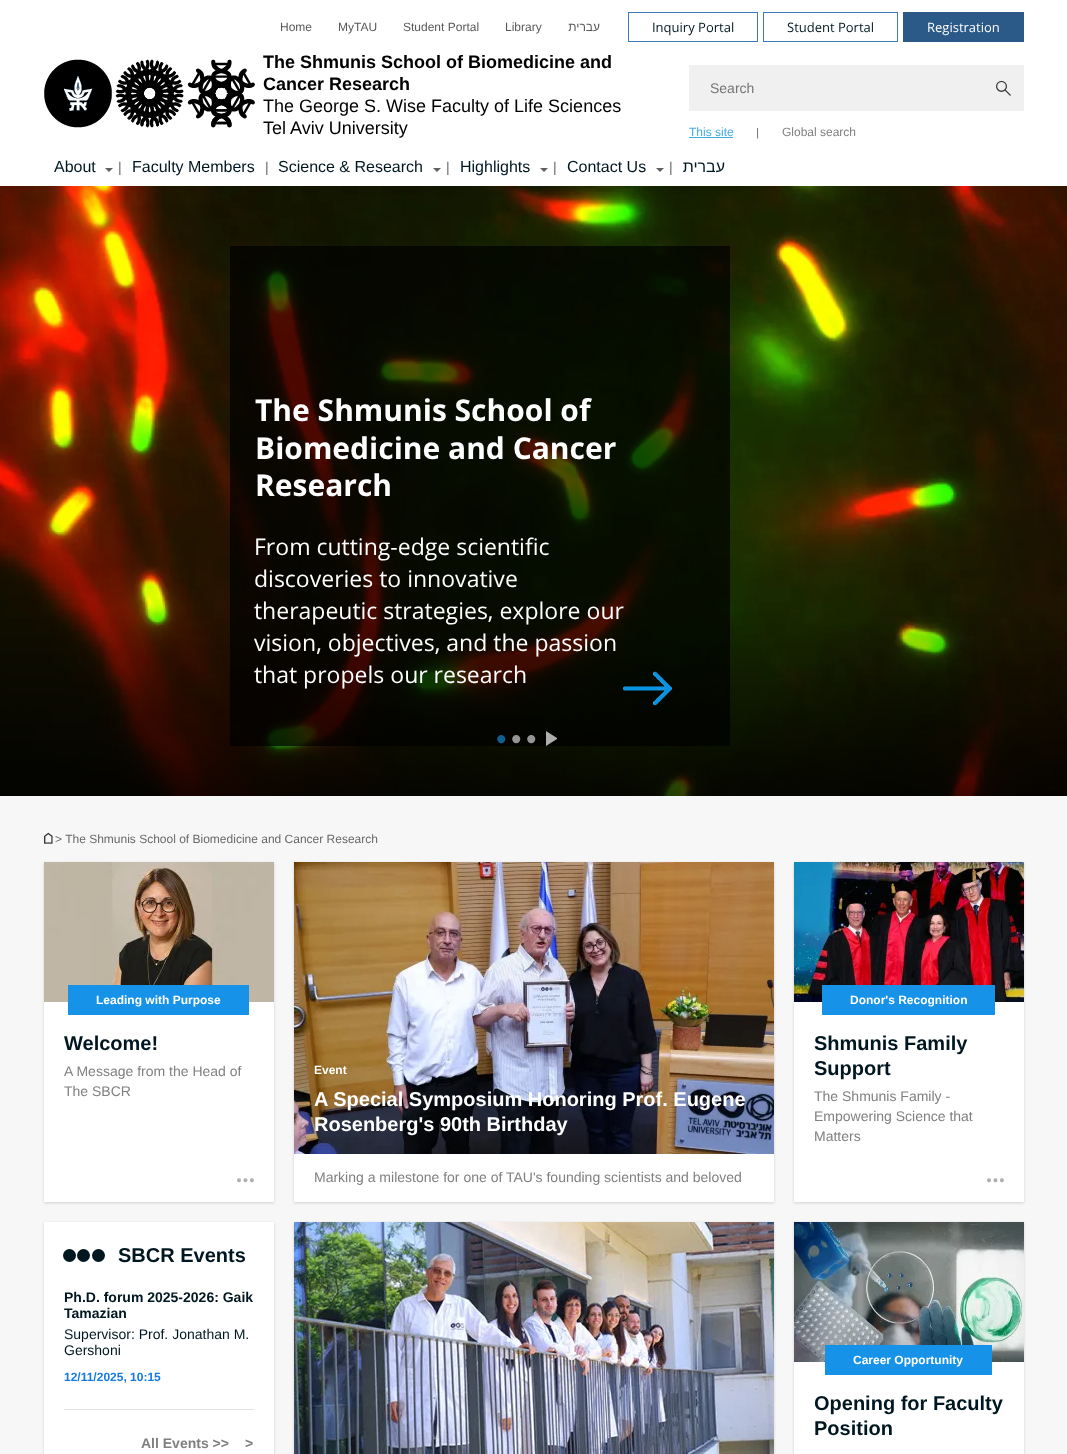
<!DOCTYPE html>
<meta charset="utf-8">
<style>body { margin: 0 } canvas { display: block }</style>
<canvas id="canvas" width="1067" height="1454"></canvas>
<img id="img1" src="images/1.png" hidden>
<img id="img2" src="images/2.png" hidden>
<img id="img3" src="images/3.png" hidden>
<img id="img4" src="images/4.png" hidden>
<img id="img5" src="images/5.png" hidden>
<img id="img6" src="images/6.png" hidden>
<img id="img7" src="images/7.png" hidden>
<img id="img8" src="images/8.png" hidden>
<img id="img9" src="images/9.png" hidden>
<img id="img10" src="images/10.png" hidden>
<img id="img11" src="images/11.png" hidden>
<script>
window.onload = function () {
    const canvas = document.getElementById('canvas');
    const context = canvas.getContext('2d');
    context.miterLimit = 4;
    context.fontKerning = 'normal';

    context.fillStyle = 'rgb(247, 247, 247)';
    context.fillRect(0, 0, 1067, 1454);
    context.fillStyle = 'rgb(255, 255, 255)';
    context.fillRect(0, 0, 1067, 186);
    context.strokeStyle = 'rgb(59, 123, 189)';
    context.strokeRect(628.5, 12.5, 129, 29);
    context.strokeRect(763.5, 12.5, 134, 29);
    context.fillStyle = 'rgb(43, 89, 136)';
    context.fillRect(903, 12, 121, 30);
    context.drawImage(document.getElementById('img1'), 44, 59, 211, 69);
    context.fillStyle = 'rgb(240, 240, 240)';
    context.fillRect(689, 65, 335, 46);
    context.drawImage(document.getElementById('img2'), 996, 80, 15, 16);
    context.fillStyle = 'rgb(69, 173, 230)';
    context.fillRect(689, 137, 44, 1);
    context.fillStyle = 'rgb(96, 96, 96)';
    context.beginPath();
    context.moveTo(105, 168);
    context.lineTo(113, 168);
    context.lineTo(109, 172);
    context.closePath();
    context.fill();
    context.beginPath();
    context.moveTo(433, 168);
    context.lineTo(441, 168);
    context.lineTo(437, 172);
    context.closePath();
    context.fill();
    context.beginPath();
    context.moveTo(540, 168);
    context.lineTo(548, 168);
    context.lineTo(544, 172);
    context.closePath();
    context.fill();
    context.beginPath();
    context.moveTo(656, 168);
    context.lineTo(664, 168);
    context.lineTo(660, 172);
    context.closePath();
    context.fill();
    context.drawImage(document.getElementById('img3'), 0, 186, 1067, 610);
    context.fillStyle = 'rgba(0, 0, 0, 0.7)';
    context.fillRect(230, 246, 500, 500);
    context.drawImage(document.getElementById('img4'), 623, 671, 49, 35);
    context.fillStyle = 'rgb(175, 175, 175)';
    context.beginPath();
    context.moveTo(546, 746);
    context.lineTo(546, 731);
    context.lineTo(557, 738);
    context.lineTo(557, 739);
    context.closePath();
    context.fill();
    context.drawImage(document.getElementById('img5'), 44, 832, 9, 12);
    context.fillStyle = 'rgba(0, 0, 0, 0.15)';
    context.filter = 'blur(1.5px)';
    context.beginPath();
    context.rect(44, 863, 230, 340);
    context.fill();
    context.filter = 'none';
    context.fillStyle = 'rgb(255, 255, 255)';
    context.fillRect(44, 1002, 230, 200);
    context.drawImage(document.getElementById('img6'), 44, 862, 230, 140);
    context.fillStyle = 'rgb(22, 146, 232)';
    context.fillRect(68, 985, 181, 30);
    context.drawImage(document.getElementById('img7'), 237, 1178, 17, 5);
    context.fillStyle = 'rgba(0, 0, 0, 0.15)';
    context.filter = 'blur(1.5px)';
    context.beginPath();
    context.rect(294, 863, 480, 340);
    context.fill();
    context.filter = 'none';
    context.fillStyle = 'rgb(255, 255, 255)';
    context.fillRect(294, 1154, 480, 48);
    context.drawImage(document.getElementById('img8'), 294, 862, 480, 292);
    context.fillStyle = 'rgba(0, 0, 0, 0.15)';
    context.filter = 'blur(1.5px)';
    context.beginPath();
    context.rect(794, 863, 230, 340);
    context.fill();
    context.filter = 'none';
    context.fillStyle = 'rgb(255, 255, 255)';
    context.fillRect(794, 1002, 230, 200);
    context.drawImage(document.getElementById('img9'), 794, 862, 230, 140);
    context.fillStyle = 'rgb(22, 146, 232)';
    context.fillRect(822, 985, 173, 30);
    context.drawImage(document.getElementById('img7'), 987, 1178, 17, 5);
    context.fillStyle = 'rgba(0, 0, 0, 0.15)';
    context.filter = 'blur(1.5px)';
    context.beginPath();
    context.rect(44, 1223, 230, 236);
    context.fill();
    context.filter = 'none';
    context.fillStyle = 'rgb(255, 255, 255)';
    context.fillRect(44, 1222, 230, 232);
    context.fillStyle = 'rgb(0, 23, 33)';
    context.beginPath();
    context.arc(69.5, 1255.5, 6.5, 0, 2 * Math.PI);
    context.fill();
    context.beginPath();
    context.arc(83.5, 1255.5, 6.5, 0, 2 * Math.PI);
    context.fill();
    context.beginPath();
    context.arc(98.5, 1255.5, 6.5, 0, 2 * Math.PI);
    context.fill();
    context.fillStyle = 'rgb(229, 229, 229)';
    context.fillRect(64, 1409, 190, 1);
    context.fillStyle = 'rgba(0, 0, 0, 0.15)';
    context.filter = 'blur(1.5px)';
    context.beginPath();
    context.rect(294, 1223, 480, 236);
    context.fill();
    context.filter = 'none';
    context.drawImage(document.getElementById('img10'), 294, 1222, 480, 232);
    context.filter = 'blur(1.5px)';
    context.beginPath();
    context.rect(794, 1223, 230, 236);
    context.fill();
    context.filter = 'none';
    context.fillStyle = 'rgb(255, 255, 255)';
    context.fillRect(794, 1362, 230, 92);
    context.drawImage(document.getElementById('img11'), 794, 1222, 230, 140);
    context.fillStyle = 'rgb(22, 146, 232)';
    context.fillRect(825, 1345, 167, 30);
    context.font = '12px Liberation Sans';
    context.fillStyle = 'rgb(89, 89, 89)';
    context.fillText('Home', 280, 31);
    context.fillText('MyTAU', 338, 31);
    context.fillText('Student Portal', 403, 31);
    context.fillText('Library', 505, 31);
    context.direction = 'rtl';
    context.fillText('עברית', 600, 31);
    context.direction = 'ltr';
    context.font = '13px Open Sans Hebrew';
    context.fillStyle = 'rgb(0, 23, 33)';
    context.fillText('Inquiry Portal', 652, 32);
    context.fillText('Student Portal', 787, 32);
    context.fillStyle = 'rgb(255, 255, 255)';
    context.fillText('Registration', 927, 32);
    context.font = 'bold 18px Liberation Sans';
    context.fillStyle = 'rgb(0, 0, 0)';
    context.fillText('The Shmunis School of Biomedicine and', 263, 68);
    context.fillText('Cancer Research', 263, 90);
    context.font = '18px Liberation Sans';
    context.fillText('The George S. Wise Faculty of Life Sciences', 263, 112);
    context.fillText('Tel Aviv University', 263, 134);
    context.font = '14px Liberation Sans';
    context.fillStyle = 'rgb(117, 117, 117)';
    context.fillText('Search', 710, 93);
    context.font = '12px Liberation Sans';
    context.fillStyle = 'rgb(69, 173, 230)';
    context.fillText('This site', 689, 136);
    context.font = 'italic 11px Liberation Sans';
    context.fillStyle = 'rgb(105, 105, 105)';
    context.fillText('|', 756, 136);
    context.font = '12px Liberation Sans';
    context.fillStyle = 'rgb(128, 128, 128)';
    context.fillText('Global search', 782, 136);
    context.font = '16px Liberation Sans';
    context.fillStyle = 'rgb(0, 23, 33)';
    context.fillText('About', 54, 172);
    context.font = '14px Liberation Sans';
    context.fillStyle = 'rgb(105, 105, 105)';
    context.fillText('|', 118, 172);
    context.font = '16px Liberation Sans';
    context.fillStyle = 'rgb(0, 23, 33)';
    context.fillText('Faculty Members', 132, 172);
    context.font = '14px Liberation Sans';
    context.fillStyle = 'rgb(105, 105, 105)';
    context.fillText('|', 265, 172);
    context.font = '16px Liberation Sans';
    context.fillStyle = 'rgb(0, 23, 33)';
    context.fillText('Science & Research', 278, 172);
    context.font = '14px Liberation Sans';
    context.fillStyle = 'rgb(105, 105, 105)';
    context.fillText('|', 446, 172);
    context.font = '16px Liberation Sans';
    context.fillStyle = 'rgb(0, 23, 33)';
    context.fillText('Highlights', 460, 172);
    context.font = '14px Liberation Sans';
    context.fillStyle = 'rgb(105, 105, 105)';
    context.fillText('|', 553, 172);
    context.font = '16px Liberation Sans';
    context.fillStyle = 'rgb(0, 23, 33)';
    context.fillText('Contact Us', 567, 172);
    context.font = '14px Liberation Sans';
    context.fillStyle = 'rgb(105, 105, 105)';
    context.fillText('|', 669, 172);
    context.direction = 'rtl';
    context.font = '16px Liberation Sans';
    context.fillStyle = 'rgb(0, 23, 33)';
    context.fillText('עברית', 725, 172);
    context.direction = 'ltr';
    context.font = 'bold 30px Open Sans Hebrew';
    context.fillStyle = 'rgb(255, 255, 255)';
    context.fillText('The Shmunis School of', 255, 421);
    context.fillText('Biomedicine and Cancer', 255, 459);
    context.fillText('Research', 255, 496);
    context.font = '23px Open Sans Hebrew';
    context.fillText('From cutting-edge scientific', 254, 555);
    context.fillText('discoveries to innovative', 254, 587);
    context.fillText('therapeutic strategies, explore our', 254, 619);
    context.fillText('vision, objectives, and the passion', 254, 651);
    context.fillText('that propels our research', 254, 683);
    context.font = '30px Liberation Sans';
    context.fillStyle = 'rgb(16, 94, 146)';
    context.fillText('•', 496, 749);
    context.fillStyle = 'rgb(149, 149, 149)';
    context.fillText('•', 511, 749);
    context.fillText('•', 526, 749);
    context.font = '12px Liberation Sans';
    context.fillStyle = 'rgb(105, 105, 105)';
    context.fillText('> The Shmunis School of Biomedicine and Cancer Research', 55, 843);
    context.font = 'bold 12px Liberation Sans';
    context.fillStyle = 'rgb(255, 255, 255)';
    context.fillText('Leading with Purpose', 96, 1004);
    context.font = 'bold 20px Liberation Sans';
    context.fillStyle = 'rgb(0, 23, 33)';
    context.fillText('Welcome!', 64, 1050);
    context.font = '14px Liberation Sans';
    context.fillStyle = 'rgb(128, 128, 128)';
    context.fillText('A Message from the Head of', 64, 1076);
    context.fillText('The SBCR', 64, 1096);
    context.font = 'bold 12px Liberation Sans';
    context.fillStyle = 'rgb(255, 255, 255)';
    context.fillText('Event', 314, 1074);
    context.font = 'bold 20px Liberation Sans';
    context.fillText('A Special Symposium Honoring Prof. Eugene', 314, 1106);
    context.fillText('Rosenberg\'s 90th Birthday', 314, 1131);
    context.font = '14px Liberation Sans';
    context.fillStyle = 'rgb(128, 128, 128)';
    context.fillText('Marking a milestone for one of TAU\'s founding scientists and beloved', 314, 1182);
    context.font = 'bold 12px Liberation Sans';
    context.fillStyle = 'rgb(255, 255, 255)';
    context.fillText('Donor\'s Recognition', 850, 1004);
    context.font = 'bold 20px Liberation Sans';
    context.fillStyle = 'rgb(0, 23, 33)';
    context.fillText('Shmunis Family', 814, 1050);
    context.fillText('Support', 814, 1075);
    context.font = '14px Liberation Sans';
    context.fillStyle = 'rgb(128, 128, 128)';
    context.fillText('The Shmunis Family -', 814, 1101);
    context.fillText('Empowering Science that', 814, 1121);
    context.fillText('Matters', 814, 1141);
    context.font = 'bold 20px Liberation Sans';
    context.fillStyle = 'rgb(0, 23, 33)';
    context.fillText('SBCR Events', 118, 1262);
    context.font = 'bold 14px Liberation Sans';
    context.fillText('Ph.D. forum 2025-2026: Gaik', 64, 1302);
    context.fillText('Tamazian', 64, 1318);
    context.font = '14px Liberation Sans';
    context.fillText('Supervisor: Prof. Jonathan M.', 64, 1339);
    context.fillText('Gershoni', 64, 1355);
    context.font = 'bold 12px Liberation Sans';
    context.fillStyle = 'rgb(21, 123, 228)';
    context.fillText('12/11/2025, 10:15', 64, 1381);
    context.font = 'bold 14px Liberation Sans';
    context.fillStyle = 'rgb(128, 128, 128)';
    context.fillText('All Events >>', 141, 1448);
    context.fillText('>', 245, 1448);
    context.font = 'bold 12px Liberation Sans';
    context.fillStyle = 'rgb(255, 255, 255)';
    context.fillText('Career Opportunity', 853, 1364);
    context.font = 'bold 20px Liberation Sans';
    context.fillStyle = 'rgb(0, 23, 33)';
    context.fillText('Opening for Faculty', 814, 1410);
    context.fillText('Position', 814, 1435);
};
</script>
